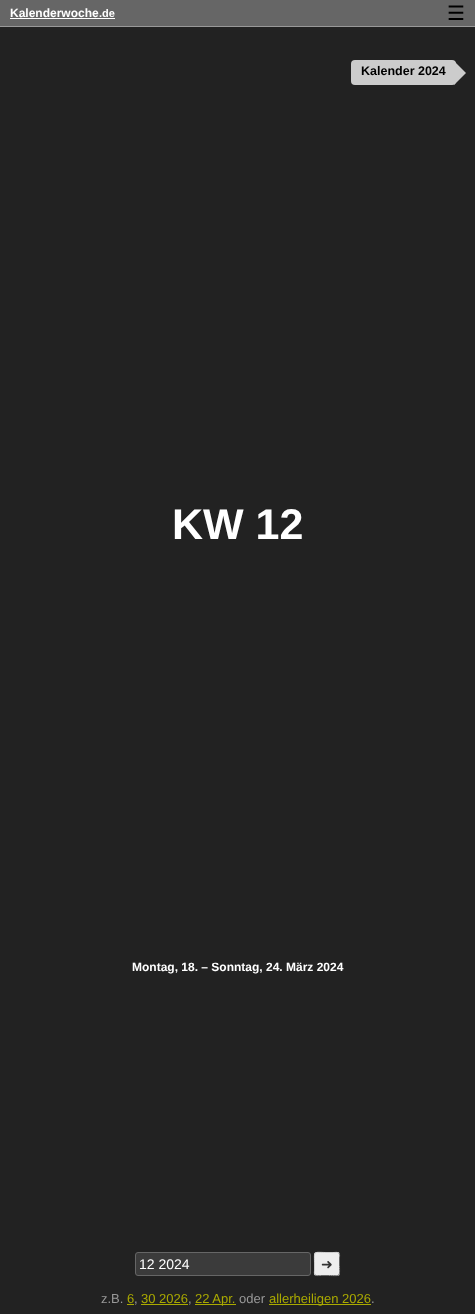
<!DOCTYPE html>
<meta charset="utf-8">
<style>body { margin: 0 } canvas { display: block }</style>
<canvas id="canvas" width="475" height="1314"></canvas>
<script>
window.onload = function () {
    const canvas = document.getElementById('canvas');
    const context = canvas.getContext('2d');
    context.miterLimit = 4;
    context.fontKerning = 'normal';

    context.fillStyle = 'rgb(34, 34, 34)';
    context.fillRect(0, 0, 475, 1314);
    context.fillStyle = 'rgb(102, 102, 102)';
    context.fillRect(0, 0, 475, 26);
    context.fillStyle = 'rgb(153, 153, 153)';
    context.fillRect(0, 26, 475, 1);
    context.fillStyle = 'rgb(255, 255, 255)';
    context.fillRect(10, 18, 105, 1);
    context.fillStyle = 'rgb(204, 204, 204)';
    context.beginPath();
    context.roundRect(351, 60, 105, 25, 4);
    context.fill();
    context.beginPath();
    context.moveTo(454, 85);
    context.lineTo(454, 61);
    context.lineTo(466, 73);
    context.closePath();
    context.fill();
    context.fillStyle = 'rgb(59, 59, 59)';
    context.beginPath();
    context.roundRect(135.5, 1252.5, 175, 23, 2.5);
    context.fill();
    context.strokeStyle = 'rgb(102, 102, 102)';
    context.stroke();
    context.fillStyle = 'rgb(238, 238, 238)';
    context.beginPath();
    context.roundRect(314, 1252, 26, 24, 3);
    context.fill();
    context.beginPath();
    context.moveTo(339, 1253);
    context.bezierCurveTo(340, 1254.5, 339.5, 1256.5, 339.5, 1258);
    context.lineTo(339.5, 1264);
    context.bezierCurveTo(339.5, 1278, 341.5, 1275.5, 327, 1275.5);
    context.lineTo(320.5, 1275.5);
    context.bezierCurveTo(319, 1275.5, 316.5, 1276, 315, 1275);
    context.stroke();
    context.beginPath();
    context.moveTo(315, 1275);
    context.bezierCurveTo(314, 1273.5, 314.5, 1271.5, 314.5, 1270);
    context.lineTo(314.5, 1264);
    context.bezierCurveTo(314.5, 1250, 312.5, 1252.5, 327, 1252.5);
    context.lineTo(333.5, 1252.5);
    context.bezierCurveTo(335, 1252.5, 337.5, 1252, 339, 1253);
    context.strokeStyle = 'rgb(204, 204, 204)';
    context.stroke();
    context.fillStyle = 'rgb(170, 170, 0)';
    context.fillRect(127, 1304, 7, 1);
    context.fillRect(141, 1304, 47, 1);
    context.fillRect(195, 1304, 41, 1);
    context.fillRect(269, 1304, 102, 1);
    context.font = 'bold 12px Liberation Sans';
    context.fillStyle = 'rgb(255, 255, 255)';
    context.fillText('Kalenderwoche', 10, 17);
    context.font = 'bold 11px Liberation Sans';
    context.fillText('.de', 99, 17);
    context.font = '20px DejaVu Sans';
    context.fillStyle = 'rgb(0, 0, 0)';
    context.fillText('☰', 447, 20);
    context.font = 'bold 12.5px Liberation Sans';
    context.fillText('Kalender 2024', 361, 75);
    context.font = 'bold 43px Liberation Sans';
    context.fillStyle = 'rgb(255, 255, 255)';
    context.fillText('KW 12', 172, 539);
    context.font = 'bold 12px Liberation Sans';
    context.fillText('Montag, 18. – Sonntag, 24. März 2024', 132, 971);
    context.font = '14px Liberation Sans';
    context.fillText('12 2024', 139, 1269);
    context.font = '14px DejaVu Sans';
    context.fillStyle = 'rgb(51, 51, 51)';
    context.fillText('➜', 321, 1269);
    context.font = '13px Liberation Sans';
    context.fillStyle = 'rgb(153, 153, 153)';
    context.fillText('z.B.', 101, 1303);
    context.fillStyle = 'rgb(170, 170, 0)';
    context.fillText('6', 127, 1303);
    context.fillStyle = 'rgb(153, 153, 153)';
    context.fillText(',', 134, 1303);
    context.fillStyle = 'rgb(170, 170, 0)';
    context.fillText('30 2026', 141, 1303);
    context.fillStyle = 'rgb(153, 153, 153)';
    context.fillText(',', 188, 1303);
    context.fillStyle = 'rgb(170, 170, 0)';
    context.fillText('22 Apr.', 195, 1303);
    context.fillStyle = 'rgb(153, 153, 153)';
    context.fillText('oder', 239, 1303);
    context.fillStyle = 'rgb(170, 170, 0)';
    context.fillText('allerheiligen 2026', 269, 1303);
    context.fillStyle = 'rgb(153, 153, 153)';
    context.fillText('.', 371, 1303);
};
</script>
